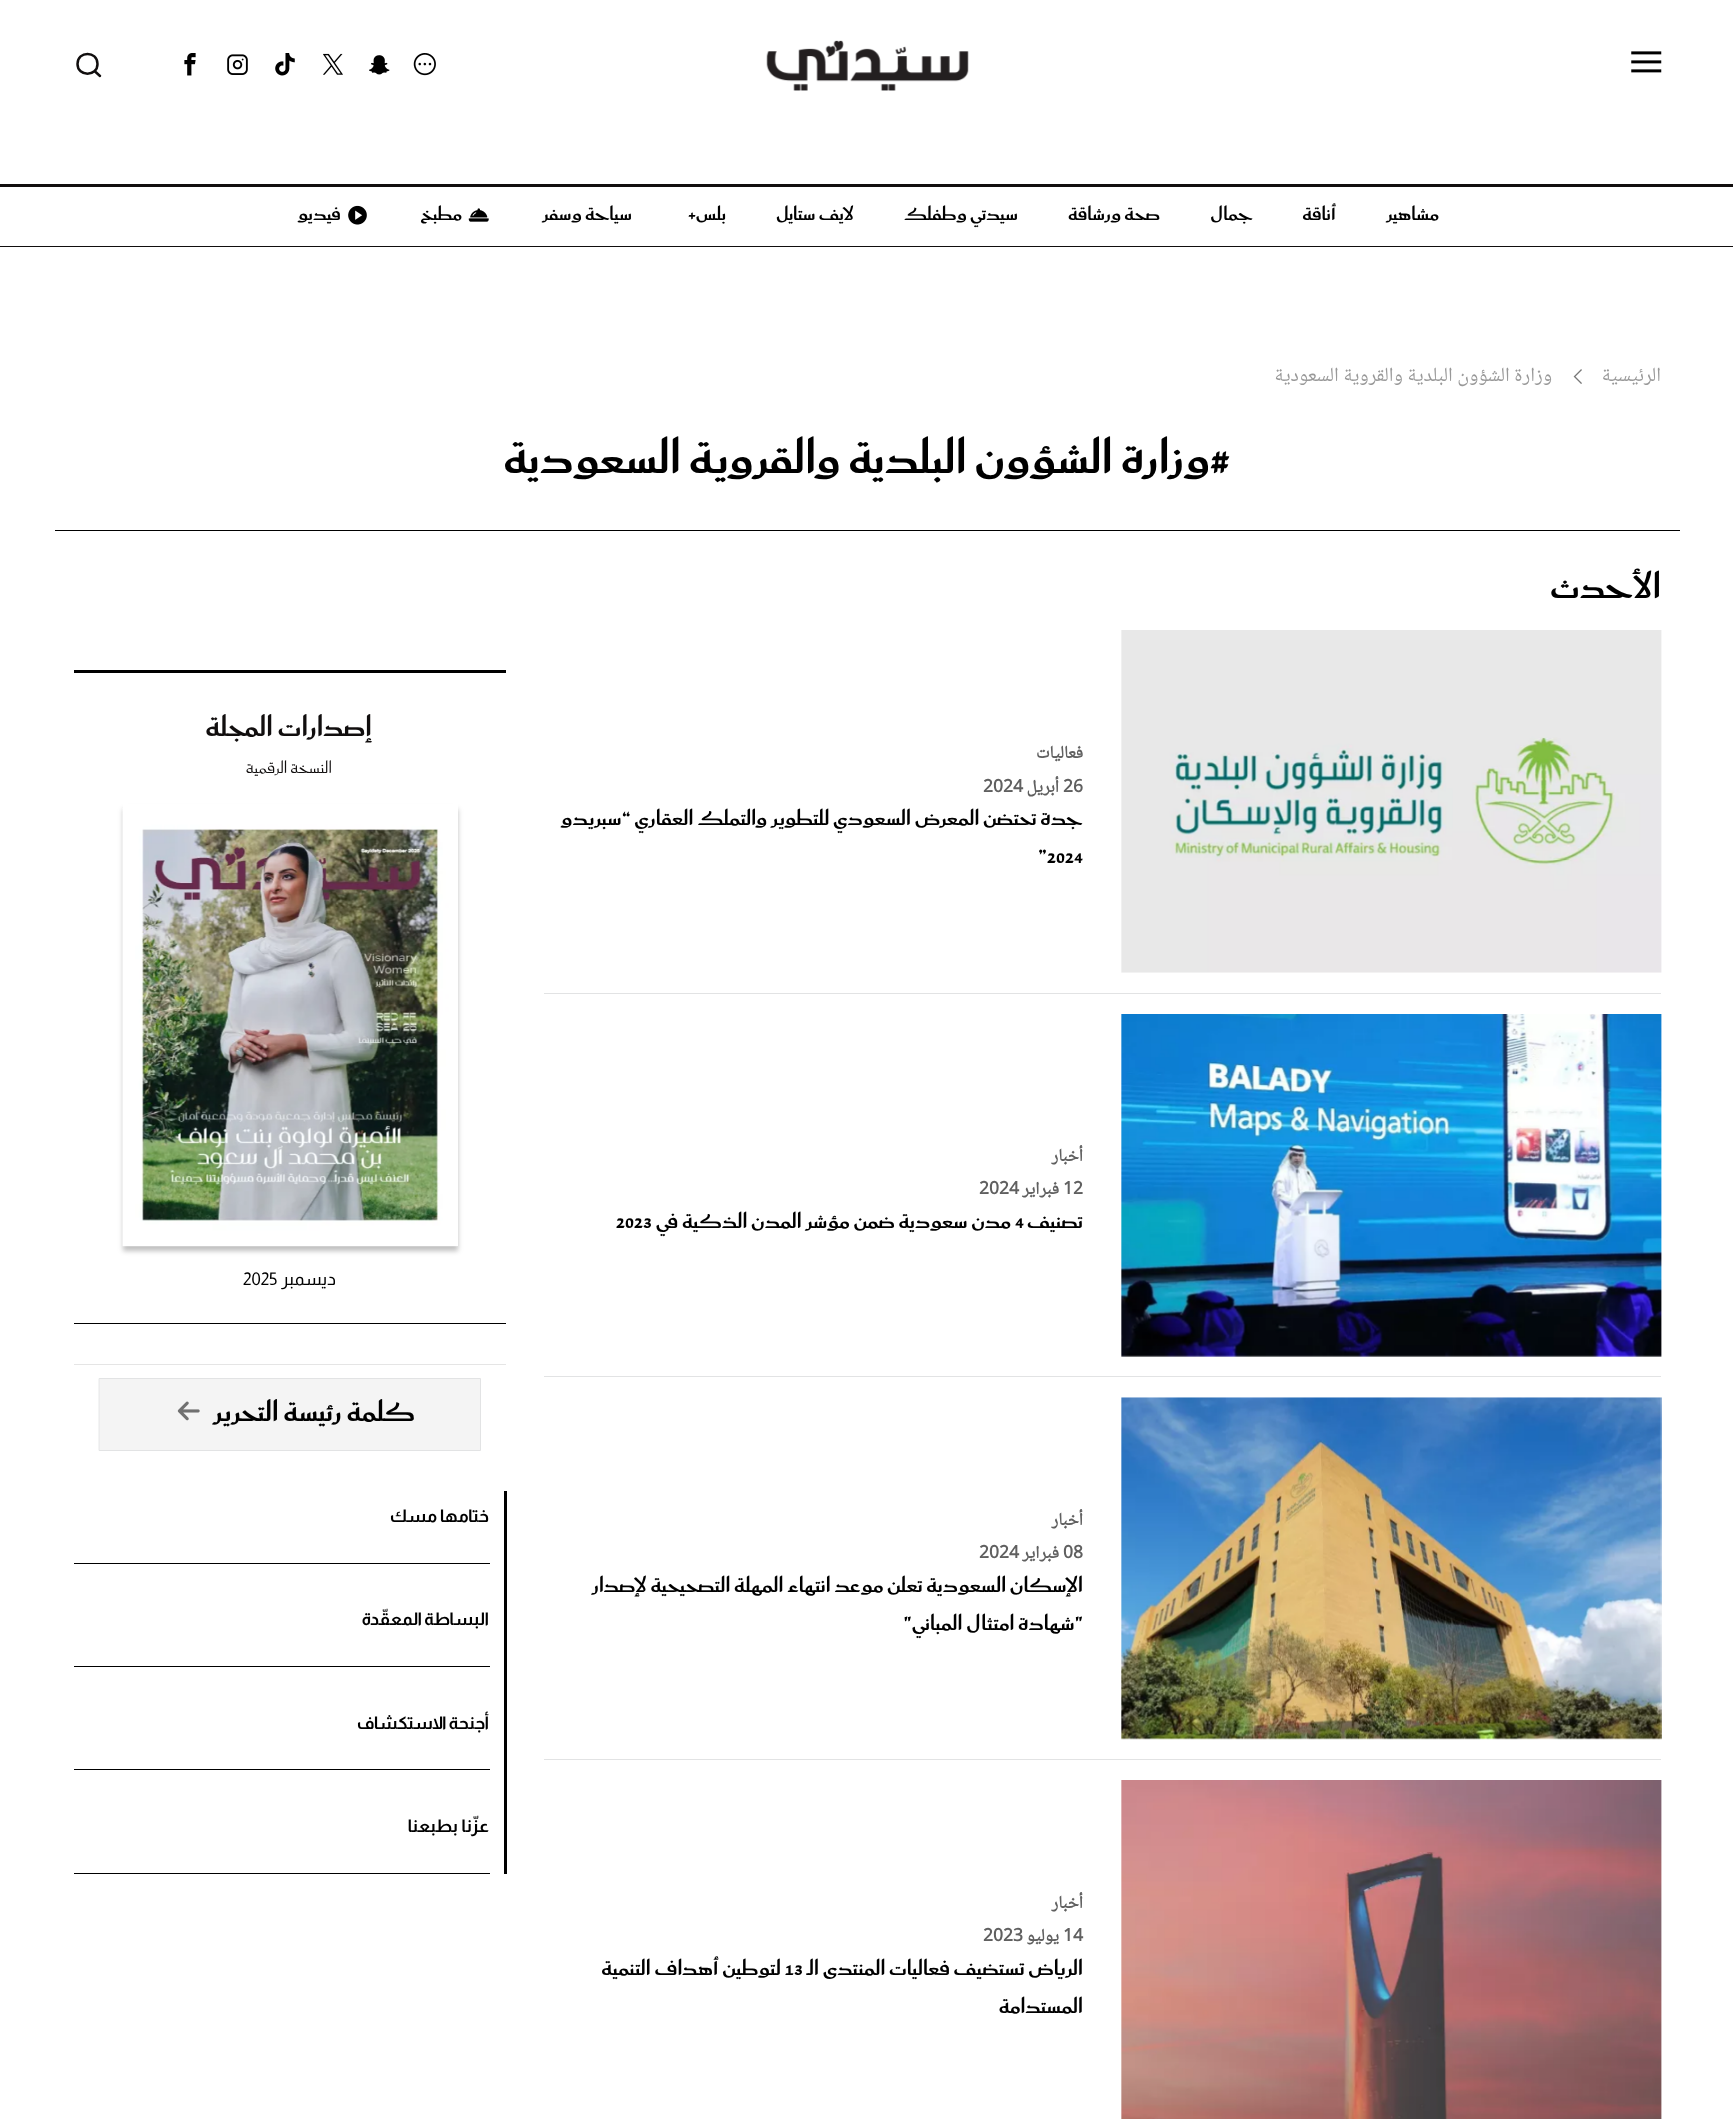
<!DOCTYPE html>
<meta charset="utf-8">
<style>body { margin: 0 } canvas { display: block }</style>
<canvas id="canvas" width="1733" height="2119"></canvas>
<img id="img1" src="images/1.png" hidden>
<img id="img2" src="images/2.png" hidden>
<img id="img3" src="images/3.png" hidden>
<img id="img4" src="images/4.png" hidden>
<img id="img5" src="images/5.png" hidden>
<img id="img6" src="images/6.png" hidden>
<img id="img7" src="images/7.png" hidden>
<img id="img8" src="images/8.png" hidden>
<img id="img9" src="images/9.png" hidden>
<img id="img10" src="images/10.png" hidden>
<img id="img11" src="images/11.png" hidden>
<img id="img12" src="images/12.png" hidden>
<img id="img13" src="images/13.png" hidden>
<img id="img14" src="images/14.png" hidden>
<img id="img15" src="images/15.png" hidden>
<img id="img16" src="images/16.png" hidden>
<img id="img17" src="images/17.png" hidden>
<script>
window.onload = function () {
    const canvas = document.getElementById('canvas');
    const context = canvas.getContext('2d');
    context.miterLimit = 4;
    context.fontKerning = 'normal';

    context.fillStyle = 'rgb(255, 255, 255)';
    context.fillRect(0, 0, 1733, 2119);
    context.drawImage(document.getElementById('img1'), 1631, 51, 31, 22);
    context.drawImage(document.getElementById('img2'), 766, 40, 203, 51);
    context.drawImage(document.getElementById('img3'), 413, 53, 23, 23);
    context.drawImage(document.getElementById('img4'), 369, 55, 21, 20);
    context.drawImage(document.getElementById('img5'), 323, 53, 20, 22);
    context.drawImage(document.getElementById('img6'), 275, 53, 20, 23);
    context.drawImage(document.getElementById('img7'), 227, 54, 21, 21);
    context.drawImage(document.getElementById('img8'), 184, 53, 12, 23);
    context.beginPath();
    context.moveTo(100, 76);
    context.lineTo(94.5, 71);
    context.moveTo(97.5, 64);
    context.bezierCurveTo(97.5, 77, 77.5, 77, 77.5, 64);
    context.bezierCurveTo(77.5, 50.5, 97.5, 50.5, 97.5, 64);
    context.closePath();
    context.strokeStyle = 'rgb(17, 14, 14)';
    context.lineWidth = 2.5;
    context.lineCap = 'round';
    context.lineJoin = 'round';
    context.stroke();
    context.fillStyle = 'rgb(17, 14, 14)';
    context.fillRect(0, 184, 1733, 3);
    context.fillRect(0, 246, 1733, 1);
    context.drawImage(document.getElementById('img9'), 468, 208, 21, 14);
    context.drawImage(document.getElementById('img10'), 348, 205, 19, 20);
    context.drawImage(document.getElementById('img11'), 1573, 369, 9, 15);
    context.fillStyle = 'rgb(0, 0, 0)';
    context.fillRect(55, 530, 1625, 1);
    context.fillStyle = 'rgb(226, 227, 228)';
    context.fillRect(544, 993, 1117, 1);
    context.drawImage(document.getElementById('img12'), 1121, 630, 541, 343);
    context.fillRect(544, 1376, 1117, 1);
    context.drawImage(document.getElementById('img13'), 1121, 1014, 541, 343);
    context.fillRect(544, 1759, 1117, 1);
    context.drawImage(document.getElementById('img14'), 1121, 1397, 541, 343);
    context.drawImage(document.getElementById('img15'), 1121, 1780, 541, 339);
    context.fillStyle = 'rgb(0, 0, 0)';
    context.fillRect(74, 670, 432, 3);
    context.fillRect(74, 1323, 432, 1);
    context.save();
    context.beginPath();
    context.moveTo(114, 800);
    context.lineTo(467, 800);
    context.lineTo(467, 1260);
    context.lineTo(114, 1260);
    context.closePath();
    context.moveTo(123, 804);
    context.lineTo(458, 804);
    context.lineTo(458, 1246);
    context.lineTo(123, 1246);
    context.closePath();
    context.clip('evenodd');
    context.fillStyle = 'rgba(0, 0, 0, 0.25)';
    context.filter = 'blur(2.5px)';
    context.beginPath();
    context.rect(123, 809, 335, 442);
    context.fill();
    context.filter = 'none';
    context.restore();
    context.drawImage(document.getElementById('img16'), 122, 808, 336, 439);
    context.fillStyle = 'rgb(229, 229, 229)';
    context.fillRect(74, 1364, 432, 1);
    context.fillStyle = 'rgb(244, 244, 244)';
    context.beginPath();
    context.rect(99.5, 1378.5, 381, 72);
    context.fill();
    context.strokeStyle = 'rgb(226, 227, 228)';
    context.lineWidth = 1;
    context.lineJoin = 'miter';
    context.stroke();
    context.drawImage(document.getElementById('img17'), 177, 1401, 23, 20);
    context.fillStyle = 'rgb(0, 0, 0)';
    context.fillRect(504, 1491, 3, 383);
    context.fillRect(74, 1563, 416, 1);
    context.fillRect(74, 1666, 416, 1);
    context.fillRect(74, 1769, 416, 1);
    context.fillRect(74, 1873, 416, 1);
    context.direction = 'rtl';
    context.font = 'bold 20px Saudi';
    context.fillText('مشاهير', 1439, 220);
    context.fillText('أناقة', 1336, 220);
    context.fillText('جمال', 1253, 220);
    context.fillText('صحة ورشاقة', 1160, 220);
    context.fillText('سيدتي وطفلك', 1018, 220);
    context.fillText('لايف ستايل', 854, 220);
    context.fillText('بلس+', 726, 220);
    context.fillText('سياحة وسفر', 632, 220);
    context.fillText('مطبخ', 462, 220);
    context.fillText('فيديو', 341, 220);
    context.font = '20px Noto Naskh Arabic';
    context.fillStyle = 'rgb(153, 153, 153)';
    context.fillText('الرئيسية', 1661, 381);
    context.fillText('وزارة الشؤون البلدية والقروية السعودية', 1552, 381);
    context.font = 'bold 50px Saudi';
    context.fillStyle = 'rgb(0, 0, 0)';
    context.fillText('#وزارة الشؤون البلدية والقروية السعودية', 1230, 473);
    context.font = 'bold 37.5px Saudi';
    context.fillText('الأحدث', 1661, 598);
    context.font = 'bold 17.5px Noto Naskh Arabic';
    context.fillStyle = 'rgb(96, 96, 96)';
    context.fillText('فعاليات', 1083, 758);
    context.direction = 'ltr';
    context.fillText('26', 1063, 792);
    context.direction = 'rtl';
    context.fillText('أبريل', 1059, 792);
    context.direction = 'ltr';
    context.fillText('2024', 983, 792);
    context.direction = 'rtl';
    context.font = 'bold 22.5px Saudi';
    context.fillStyle = 'rgb(0, 0, 0)';
    context.fillText('جدة تحتضن المعرض السعودي للتطوير والتملك العقاري “سبريدو', 1083, 825);
    context.direction = 'ltr';
    context.fillText('”2024', 1038, 863);
    context.direction = 'rtl';
    context.font = 'bold 17.5px Noto Naskh Arabic';
    context.fillStyle = 'rgb(96, 96, 96)';
    context.fillText('أخبار', 1083, 1161);
    context.direction = 'ltr';
    context.fillText('12', 1063, 1194);
    context.direction = 'rtl';
    context.fillText('فبراير', 1059, 1194);
    context.direction = 'ltr';
    context.fillText('2024', 979, 1194);
    context.direction = 'rtl';
    context.font = 'bold 22.5px Saudi';
    context.fillStyle = 'rgb(0, 0, 0)';
    context.fillText('تصنيف', 1083, 1228);
    context.direction = 'ltr';
    context.fillText('4', 1015, 1228);
    context.direction = 'rtl';
    context.fillText('مدن سعودية ضمن مؤشر المدن الذكية في', 1011, 1228);
    context.direction = 'ltr';
    context.fillText('2023', 616, 1228);
    context.direction = 'rtl';
    context.font = 'bold 17.5px Noto Naskh Arabic';
    context.fillStyle = 'rgb(96, 96, 96)';
    context.fillText('أخبار', 1083, 1525);
    context.direction = 'ltr';
    context.fillText('08', 1063, 1558);
    context.direction = 'rtl';
    context.fillText('فبراير', 1059, 1558);
    context.direction = 'ltr';
    context.fillText('2024', 979, 1558);
    context.direction = 'rtl';
    context.font = 'bold 22.5px Saudi';
    context.fillStyle = 'rgb(0, 0, 0)';
    context.fillText('الإسكان السعودية تعلن موعد انتهاء المهلة التصحيحية لإصدار', 1083, 1592);
    context.fillText('"شهادة امتثال المباني"', 1083, 1630);
    context.font = 'bold 17.5px Noto Naskh Arabic';
    context.fillStyle = 'rgb(96, 96, 96)';
    context.fillText('أخبار', 1083, 1908);
    context.direction = 'ltr';
    context.fillText('14', 1063, 1941);
    context.direction = 'rtl';
    context.fillText('يوليو', 1059, 1941);
    context.direction = 'ltr';
    context.fillText('2023', 983, 1941);
    context.direction = 'rtl';
    context.font = 'bold 22.5px Saudi';
    context.fillStyle = 'rgb(0, 0, 0)';
    context.fillText('الرياض تستضيف فعاليات المنتدى الـ', 1083, 1975);
    context.direction = 'ltr';
    context.fillText('13', 785, 1975);
    context.direction = 'rtl';
    context.fillText('لتوطين أهداف التنمية', 781, 1975);
    context.fillText('المستدامة', 1083, 2013);
    context.font = 'bold 30px Saudi';
    context.fillStyle = 'rgb(17, 14, 14)';
    context.fillText('إصدارات المجلة', 372, 736);
    context.font = '17.5px Saudi';
    context.fillText('النسخة الرقمية', 332, 773);
    context.font = '17.5px Almarai';
    context.fillStyle = 'rgb(0, 0, 0)';
    context.fillText('ديسمبر', 336, 1285);
    context.direction = 'ltr';
    context.fillText('2025', 243, 1285);
    context.direction = 'rtl';
    context.font = 'bold 30px Saudi';
    context.fillText('كلمة رئيسة التحرير', 415, 1421);
    context.font = 'bold 17.5px Almarai';
    context.fillText('ختامها مسك', 489, 1522);
    context.fillText('البساطة المعقّدة', 489, 1625);
    context.fillText('أجنحة الاستكشاف', 489, 1729);
    context.fillText('عزّنا بطبعنا', 489, 1832);
};
</script>
